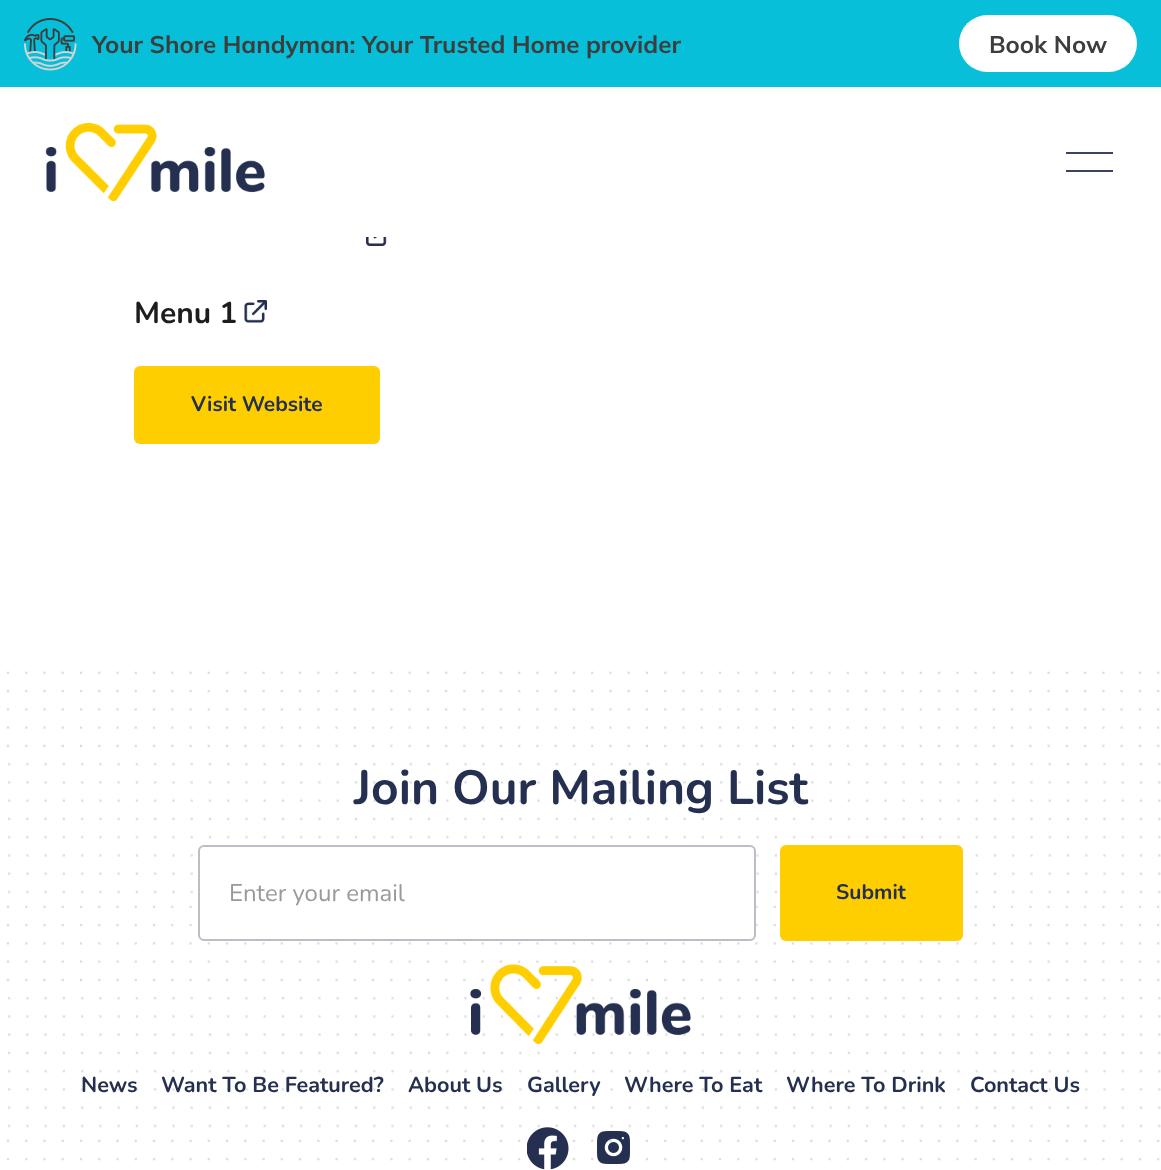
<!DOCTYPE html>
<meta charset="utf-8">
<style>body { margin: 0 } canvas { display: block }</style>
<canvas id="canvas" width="1161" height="1170"></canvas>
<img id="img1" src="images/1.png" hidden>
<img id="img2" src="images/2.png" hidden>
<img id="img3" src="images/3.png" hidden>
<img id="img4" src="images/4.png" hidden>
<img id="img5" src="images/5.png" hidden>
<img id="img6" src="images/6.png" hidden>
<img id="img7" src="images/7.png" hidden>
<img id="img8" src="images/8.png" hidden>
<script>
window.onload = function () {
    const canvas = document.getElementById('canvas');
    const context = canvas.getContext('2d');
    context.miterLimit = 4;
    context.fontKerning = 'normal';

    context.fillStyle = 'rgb(255, 255, 255)';
    context.fillRect(0, 0, 1161, 1170);
    context.fillStyle = 'rgb(7, 191, 216)';
    context.fillRect(0, 0, 1161, 87);
    context.drawImage(document.getElementById('img1'), 24, 18, 53, 53);
    context.fillStyle = 'rgb(255, 255, 255)';
    context.beginPath();
    context.roundRect(959, 15, 178, 57, 28.5);
    context.fill();
    context.drawImage(document.getElementById('img2'), 45, 123, 220, 78);
    context.fillStyle = 'rgb(59, 67, 96)';
    context.fillRect(1066, 152, 47, 2);
    context.fillRect(1066, 170, 47, 2);
    context.drawImage(document.getElementById('img3'), 366, 237, 21, 9);
    context.drawImage(document.getElementById('img4'), 244, 300, 23, 23);
    context.fillStyle = 'rgb(255, 206, 0)';
    context.beginPath();
    context.roundRect(134, 366, 246, 78, 6);
    context.fill();
    context.drawImage(document.getElementById('img5'), 6, 671, 1155, 490);
    context.fillStyle = 'rgb(255, 255, 255)';
    context.beginPath();
    context.roundRect(199, 846, 556, 94, 5);
    context.fill();
    context.strokeStyle = 'rgb(189, 189, 198)';
    context.lineWidth = 2;
    context.stroke();
    context.fillStyle = 'rgb(255, 206, 0)';
    context.beginPath();
    context.roundRect(780, 845, 183, 96, 6);
    context.fill();
    context.drawImage(document.getElementById('img6'), 470, 964, 221, 80);
    context.drawImage(document.getElementById('img7'), 527, 1127, 42, 43);
    context.drawImage(document.getElementById('img8'), 597, 1131, 33, 33);
    context.font = 'bold 24px Mulish';
    context.fillStyle = 'rgb(61, 61, 61)';
    context.fillText('Your Shore Handyman: Your Trusted Home provider', 92, 53);
    context.fillText('Book Now', 989, 53);
    context.font = 'bold 30px Nunito';
    context.fillStyle = 'rgb(29, 29, 29)';
    context.fillText('Menu 1', 134, 323);
    context.font = 'bold 21px Nunito';
    context.fillStyle = 'rgb(37, 47, 79)';
    context.fillText('Visit Website', 191, 411);
    context.font = 'bold 48px Nunito';
    context.fillText('Join Our Mailing List', 354, 804);
    context.font = '24px Nunito';
    context.fillStyle = 'rgb(153, 153, 153)';
    context.fillText('Enter your email', 229, 901);
    context.font = 'bold 21px Nunito';
    context.fillStyle = 'rgb(37, 47, 79)';
    context.fillText('Submit', 836, 899);
    context.font = 'bold 21.6px Nunito';
    context.fillText('News', 81, 1092);
    context.fillText('Want To Be Featured?', 161, 1092);
    context.fillText('About Us', 408, 1092);
    context.fillText('Gallery', 527, 1092);
    context.fillText('Where To Eat', 624, 1092);
    context.fillText('Where To Drink', 786, 1092);
    context.fillText('Contact Us', 970, 1092);
};
</script>
